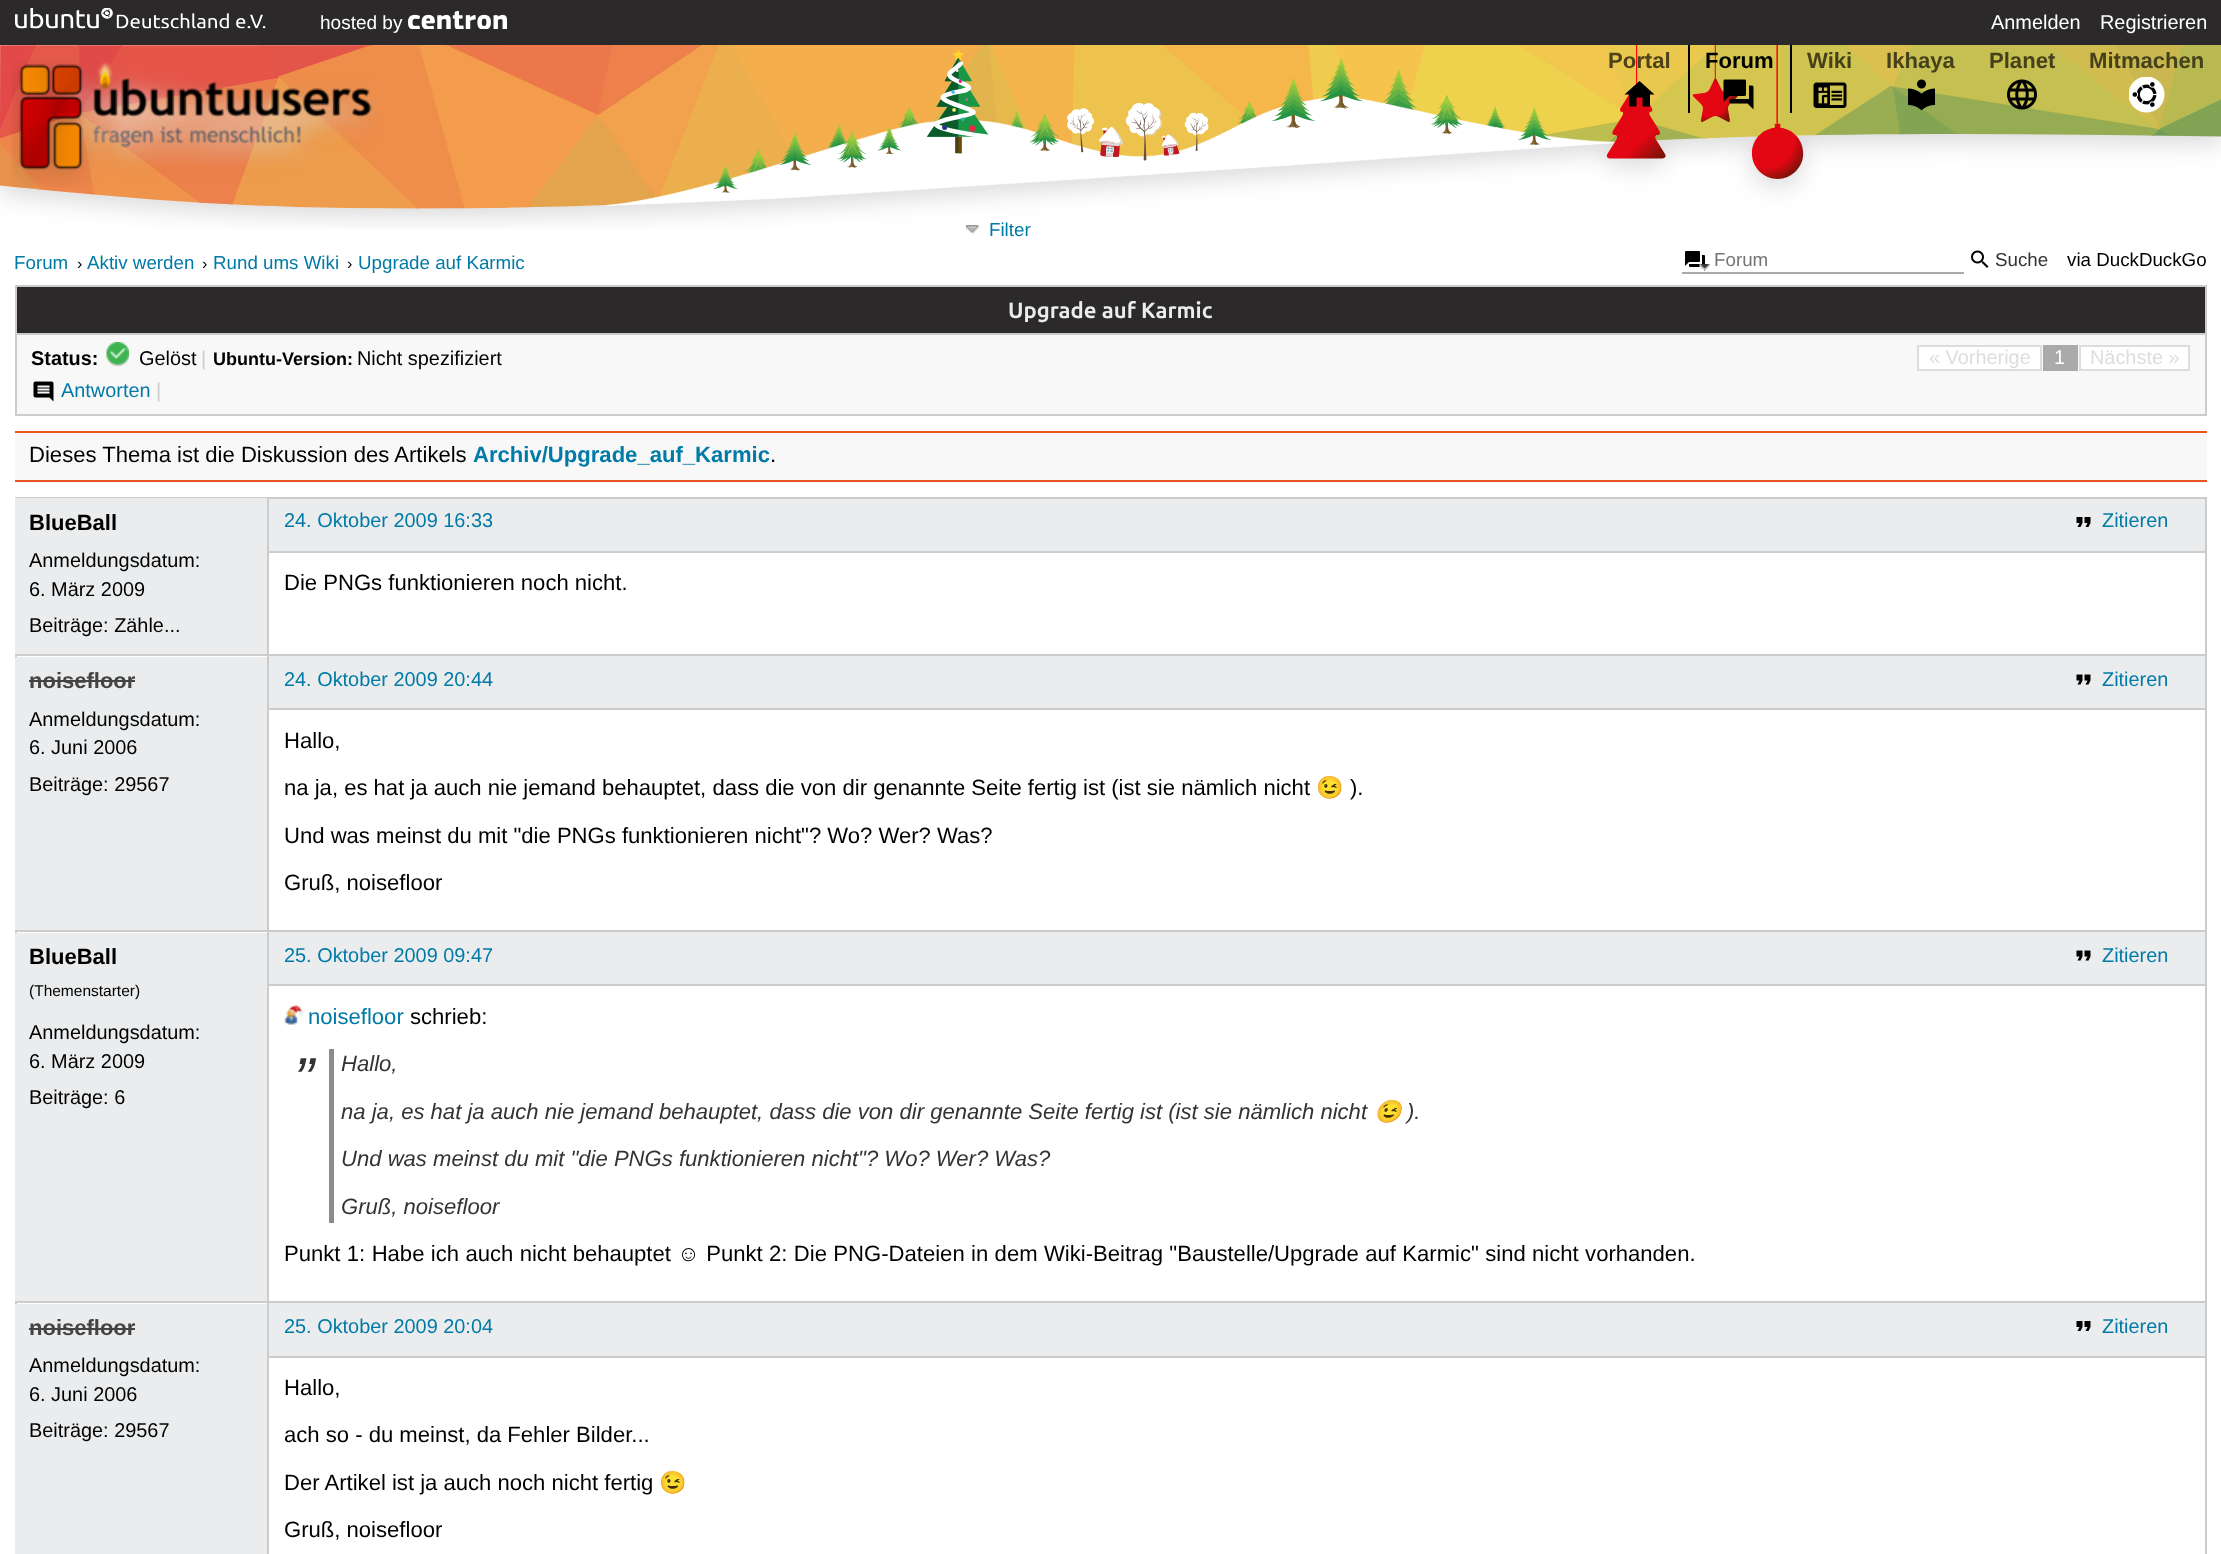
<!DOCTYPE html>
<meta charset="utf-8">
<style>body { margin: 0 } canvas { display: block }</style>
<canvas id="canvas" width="2221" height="1554"></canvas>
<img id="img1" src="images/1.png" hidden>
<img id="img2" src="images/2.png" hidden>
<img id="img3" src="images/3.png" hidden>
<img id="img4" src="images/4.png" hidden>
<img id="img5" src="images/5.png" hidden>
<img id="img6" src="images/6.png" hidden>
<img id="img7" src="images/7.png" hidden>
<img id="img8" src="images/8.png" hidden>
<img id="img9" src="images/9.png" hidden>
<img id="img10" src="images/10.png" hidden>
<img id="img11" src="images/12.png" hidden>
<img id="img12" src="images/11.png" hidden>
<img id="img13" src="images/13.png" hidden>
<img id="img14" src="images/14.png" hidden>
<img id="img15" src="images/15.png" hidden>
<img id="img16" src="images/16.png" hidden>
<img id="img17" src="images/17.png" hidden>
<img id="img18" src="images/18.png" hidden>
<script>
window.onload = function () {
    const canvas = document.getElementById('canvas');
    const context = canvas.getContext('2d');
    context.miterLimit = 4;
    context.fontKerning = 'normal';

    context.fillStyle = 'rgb(255, 255, 255)';
    context.fillRect(0, 0, 2221, 1554);
    context.fillStyle = 'rgb(43, 41, 41)';
    context.fillRect(0, 0, 2221, 45);
    context.drawImage(document.getElementById('img1'), 15, 8, 251, 21);
    context.drawImage(document.getElementById('img2'), 408, 11, 99, 18);
    context.drawImage(document.getElementById('img3'), 0, 45, 2221, 184);
    context.drawImage(document.getElementById('img4'), 12, 61, 366, 126);
    context.fillStyle = 'rgb(0, 0, 0)';
    context.beginPath();
    context.moveTo(1636.5, 106.5);
    context.lineTo(1636.5, 97.5);
    context.lineTo(1642.5, 97.5);
    context.lineTo(1642.5, 106.5);
    context.lineTo(1650, 106.5);
    context.lineTo(1650, 94.5);
    context.lineTo(1654.5, 94.5);
    context.lineTo(1639.5, 81);
    context.lineTo(1624.5, 94.5);
    context.lineTo(1629, 94.5);
    context.lineTo(1629, 106.5);
    context.closePath();
    context.fill();
    context.fillRect(1790, 45, 2, 68);
    context.fillRect(1688, 45, 2, 68);
    context.drawImage(document.getElementById('img5'), 1723, 79, 31, 31);
    context.drawImage(document.getElementById('img6'), 1813, 82, 34, 26);
    context.drawImage(document.getElementById('img7'), 1908, 79, 27, 32);
    context.drawImage(document.getElementById('img8'), 2007, 79, 30, 31);
    context.drawImage(document.getElementById('img9'), 2129, 77, 36, 36);
    context.drawImage(document.getElementById('img10'), 966, 225, 14, 9);
    context.drawImage(document.getElementById('img11'), 1685, 251, 20, 20);
    context.drawImage(document.getElementById('img12'), 1699, 264, 11, 6);
    context.fillStyle = 'rgb(170, 170, 170)';
    context.fillRect(1682, 272, 282, 2);
    context.drawImage(document.getElementById('img13'), 1971, 250, 18, 18);
    context.fillStyle = 'rgb(248, 248, 248)';
    context.fillRect(17, 335, 2188, 79);
    context.strokeStyle = 'rgb(204, 204, 204)';
    context.lineWidth = 2;
    context.strokeRect(16, 286, 2190, 129);
    context.fillStyle = 'rgb(43, 41, 41)';
    context.fillRect(17, 287, 2188, 46);
    context.fillStyle = 'rgb(204, 204, 204)';
    context.fillRect(17, 333, 2188, 2);
    context.drawImage(document.getElementById('img14'), 106, 342, 23, 24);
    context.fillStyle = 'rgb(255, 255, 255)';
    context.beginPath();
    context.rect(1918, 346, 123, 24);
    context.fill();
    context.strokeStyle = 'rgb(221, 221, 221)';
    context.stroke();
    context.fillStyle = 'rgb(170, 170, 170)';
    context.fillRect(2043, 345, 35, 26);
    context.fillStyle = 'rgb(255, 255, 255)';
    context.beginPath();
    context.rect(2080, 346, 109, 24);
    context.fill();
    context.stroke();
    context.drawImage(document.getElementById('img15'), 33, 381, 21, 21);
    context.fillStyle = 'rgb(248, 248, 248)';
    context.fillRect(15, 433, 2192, 47);
    context.fillStyle = 'rgb(233, 84, 32)';
    context.fillRect(15, 431, 2192, 2);
    context.fillRect(15, 480, 2192, 2);
    context.fillStyle = 'rgb(204, 204, 204)';
    context.fillRect(15, 497, 2192, 2);
    context.fillRect(2205, 497, 2, 1057);
    context.fillRect(15, 497, 2, 807);
    context.fillStyle = 'rgb(234, 236, 238)';
    context.fillRect(15, 498, 252, 156);
    context.fillRect(269, 499, 1936, 52);
    context.fillStyle = 'rgb(204, 204, 204)';
    context.fillRect(269, 551, 1936, 2);
    context.drawImage(document.getElementById('img16'), 2076, 517, 15, 10);
    context.fillRect(15, 654, 2192, 2);
    context.fillRect(15, 930, 2192, 2);
    context.fillRect(15, 1301, 2192, 2);
    context.fillRect(267, 1301, 2, 253);
    context.fillRect(267, 930, 2, 372);
    context.fillRect(267, 497, 2, 435);
    context.fillStyle = 'rgb(234, 236, 238)';
    context.fillRect(15, 657, 252, 273);
    context.fillStyle = 'rgb(68, 68, 68)';
    context.fillRect(29, 680, 106, 2);
    context.fillStyle = 'rgb(234, 236, 238)';
    context.fillRect(269, 656, 1936, 52);
    context.fillStyle = 'rgb(204, 204, 204)';
    context.fillRect(269, 708, 1936, 2);
    context.drawImage(document.getElementById('img17'), 2076, 674, 15, 11);
    context.fillStyle = 'rgb(234, 236, 238)';
    context.fillRect(15, 933, 252, 368);
    context.fillRect(269, 932, 1936, 52);
    context.fillStyle = 'rgb(204, 204, 204)';
    context.fillRect(269, 984, 1936, 2);
    context.drawImage(document.getElementById('img17'), 2076, 950, 15, 11);
    context.drawImage(document.getElementById('img18'), 284, 1005, 20, 20);
    context.fillStyle = 'rgb(140, 140, 140)';
    context.fillRect(329, 1049, 5, 174);
    context.fillStyle = 'rgb(234, 236, 238)';
    context.fillRect(15, 1304, 252, 250);
    context.fillStyle = 'rgb(68, 68, 68)';
    context.fillRect(29, 1328, 106, 2);
    context.fillStyle = 'rgb(234, 236, 238)';
    context.fillRect(269, 1303, 1936, 53);
    context.fillStyle = 'rgb(204, 204, 204)';
    context.fillRect(269, 1356, 1936, 2);
    context.drawImage(document.getElementById('img16'), 2076, 1321, 15, 10);
    context.font = '19px Liberation Sans';
    context.fillStyle = 'rgb(255, 255, 255)';
    context.fillText('hosted by', 320, 29);
    context.font = '19.9px Liberation Sans';
    context.fillText('Anmelden', 1991, 29);
    context.fillText('Registrieren', 2100, 29);
    context.font = 'bold 22.08px Liberation Sans';
    context.fillStyle = 'rgb(77, 66, 25)';
    context.fillText('Portal', 1608, 68);
    context.fillStyle = 'rgb(0, 0, 0)';
    context.fillText('Forum', 1705, 68);
    context.fillStyle = 'rgb(69, 65, 26)';
    context.fillText('Wiki', 1807, 68);
    context.fillText('Ikhaya', 1886, 68);
    context.fillText('Planet', 1989, 68);
    context.fillText('Mitmachen', 2089, 68);
    context.font = '18.75px Liberation Sans';
    context.fillStyle = 'rgb(0, 122, 166)';
    context.fillText('Filter', 989, 236);
    context.fillText('Forum', 14, 269);
    context.font = '16px Liberation Sans';
    context.fillStyle = 'rgb(0, 0, 0)';
    context.fillText('›', 77, 269);
    context.font = '18.75px Liberation Sans';
    context.fillStyle = 'rgb(0, 122, 166)';
    context.fillText('Aktiv werden', 87, 269);
    context.font = '16px Liberation Sans';
    context.fillStyle = 'rgb(0, 0, 0)';
    context.fillText('›', 202, 269);
    context.font = '18.75px Liberation Sans';
    context.fillStyle = 'rgb(0, 122, 166)';
    context.fillText('Rund ums Wiki', 213, 269);
    context.font = '16px Liberation Sans';
    context.fillStyle = 'rgb(0, 0, 0)';
    context.fillText('›', 347, 269);
    context.font = '18.75px Liberation Sans';
    context.fillStyle = 'rgb(0, 122, 166)';
    context.fillText('Upgrade auf Karmic', 358, 269);
    context.fillStyle = 'rgb(117, 117, 117)';
    context.fillText('Forum', 1714, 266);
    context.fillStyle = 'rgb(51, 51, 51)';
    context.fillText('Suche', 1995, 266);
    context.fillStyle = 'rgb(0, 0, 0)';
    context.fillText('via DuckDuckGo', 2067, 266);
    context.font = 'bold 22.08px Ubuntu';
    context.fillStyle = 'rgb(234, 236, 238)';
    context.fillText('Upgrade auf Karmic', 1008, 318);
    context.font = 'bold 19.9px Liberation Sans';
    context.fillStyle = 'rgb(0, 0, 0)';
    context.fillText('Status:', 31, 365);
    context.font = '19.9px Liberation Sans';
    context.fillText('Gelöst', 139, 365);
    context.fillStyle = 'rgb(204, 204, 204)';
    context.fillText('|', 201, 365);
    context.font = 'bold 18px Liberation Sans';
    context.fillStyle = 'rgb(0, 0, 0)';
    context.fillText('Ubuntu-Version:', 213, 365);
    context.font = '19.9px Liberation Sans';
    context.fillText('Nicht spezifiziert', 357, 365);
    context.fillStyle = 'rgb(221, 221, 221)';
    context.fillText('« Vorherige', 1929, 364);
    context.fillStyle = 'rgb(255, 255, 255)';
    context.fillText('1', 2054, 364);
    context.fillStyle = 'rgb(221, 221, 221)';
    context.fillText('Nächste »', 2090, 364);
    context.fillStyle = 'rgb(0, 122, 166)';
    context.fillText('Antworten', 61, 397);
    context.fillStyle = 'rgb(204, 204, 204)';
    context.fillText('|', 156, 397);
    context.font = '22.08px Liberation Sans';
    context.fillStyle = 'rgb(0, 0, 0)';
    context.fillText('Dieses Thema ist die Diskussion des Artikels', 29, 462);
    context.font = 'bold 22.08px Liberation Sans';
    context.fillStyle = 'rgb(0, 122, 166)';
    context.fillText('Archiv/Upgrade_auf_Karmic', 473, 462);
    context.font = '22.08px Liberation Sans';
    context.fillStyle = 'rgb(0, 0, 0)';
    context.fillText('.', 770, 462);
    context.font = 'bold 22px Liberation Sans';
    context.fillText('BlueBall', 29, 530);
    context.font = '19.9px Liberation Sans';
    context.fillText('Anmeldungsdatum:', 29, 567);
    context.fillText('6. März 2009', 29, 596);
    context.fillText('Beiträge: Zähle...', 29, 632);
    context.fillStyle = 'rgb(0, 122, 166)';
    context.fillText('24. Oktober 2009 16:33', 284, 527);
    context.fillText('Zitieren', 2102, 527);
    context.font = '22.08px Liberation Sans';
    context.fillStyle = 'rgb(0, 0, 0)';
    context.fillText('Die PNGs funktionieren noch nicht.', 284, 590);
    context.font = 'bold 22px Liberation Sans';
    context.fillStyle = 'rgb(68, 68, 68)';
    context.fillText('noisefloor', 29, 688);
    context.font = '19.9px Liberation Sans';
    context.fillStyle = 'rgb(0, 0, 0)';
    context.fillText('Anmeldungsdatum:', 29, 726);
    context.fillText('6. Juni 2006', 29, 754);
    context.fillText('Beiträge: 29567', 29, 791);
    context.fillStyle = 'rgb(0, 122, 166)';
    context.fillText('24. Oktober 2009 20:44', 284, 686);
    context.fillText('Zitieren', 2102, 686);
    context.font = '22.08px Liberation Sans';
    context.fillStyle = 'rgb(0, 0, 0)';
    context.fillText('Hallo,', 284, 748);
    context.fillText('na ja, es hat ja auch nie jemand behauptet, dass die von dir genannte Seite fertig ist (ist sie nämlich nicht', 284, 795);
    context.font = '22.08px Noto Color Emoji';
    context.fillText('😉', 1316, 795);
    context.font = '22.08px Liberation Sans';
    context.fillText(').', 1350, 795);
    context.fillText('Und was meinst du mit "die PNGs funktionieren nicht"? Wo? Wer? Was?', 284, 843);
    context.fillText('Gruß, noisefloor', 284, 890);
    context.font = 'bold 22px Liberation Sans';
    context.fillText('BlueBall', 29, 964);
    context.font = '15.5px Liberation Sans';
    context.fillText('(Themenstarter)', 29, 996);
    context.font = '19.9px Liberation Sans';
    context.fillText('Anmeldungsdatum:', 29, 1039);
    context.fillText('6. März 2009', 29, 1068);
    context.fillText('Beiträge: 6', 29, 1104);
    context.fillStyle = 'rgb(0, 122, 166)';
    context.fillText('25. Oktober 2009 09:47', 284, 962);
    context.fillText('Zitieren', 2102, 962);
    context.font = '22.08px Liberation Sans';
    context.fillText('noisefloor', 308, 1024);
    context.fillStyle = 'rgb(0, 0, 0)';
    context.fillText('schrieb:', 410, 1024);
    context.font = 'italic 60px Liberation Sans';
    context.fillStyle = 'rgb(51, 51, 51)';
    context.fillText('„', 300, 1064);
    context.font = 'italic 22.08px Liberation Sans';
    context.fillText('Hallo,', 341, 1071);
    context.fillText('na ja, es hat ja auch nie jemand behauptet, dass die von dir genannte Seite fertig ist (ist sie nämlich nicht', 341, 1119);
    context.font = 'italic 22.08px Noto Color Emoji';
    context.fillText('😉', 1374, 1119);
    context.font = 'italic 22.08px Liberation Sans';
    context.fillText(').', 1407, 1119);
    context.fillText('Und was meinst du mit "die PNGs funktionieren nicht"? Wo? Wer? Was?', 341, 1166);
    context.fillText('Gruß, noisefloor', 341, 1214);
    context.wordSpacing = '0.25px';
    context.font = '22.08px Liberation Sans';
    context.fillStyle = 'rgb(0, 0, 0)';
    context.fillText('Punkt 1: Habe ich auch nicht behauptet ☺ Punkt 2: Die PNG-Dateien in dem Wiki-Beitrag "Baustelle/Upgrade auf Karmic" sind nicht vorhanden.', 284, 1261);
    context.wordSpacing = '0px';
    context.font = 'bold 22px Liberation Sans';
    context.fillStyle = 'rgb(68, 68, 68)';
    context.fillText('noisefloor', 29, 1335);
    context.font = '19.9px Liberation Sans';
    context.fillStyle = 'rgb(0, 0, 0)';
    context.fillText('Anmeldungsdatum:', 29, 1372);
    context.fillText('6. Juni 2006', 29, 1401);
    context.fillText('Beiträge: 29567', 29, 1437);
    context.fillStyle = 'rgb(0, 122, 166)';
    context.fillText('25. Oktober 2009 20:04', 284, 1333);
    context.fillText('Zitieren', 2102, 1333);
    context.font = '22.08px Liberation Sans';
    context.fillStyle = 'rgb(0, 0, 0)';
    context.fillText('Hallo,', 284, 1395);
    context.fillText('ach so - du meinst, da Fehler Bilder...', 284, 1442);
    context.fillText('Der Artikel ist ja auch noch nicht fertig', 284, 1490);
    context.font = '22.08px Noto Color Emoji';
    context.fillText('😉', 659, 1490);
    context.font = '22.08px Liberation Sans';
    context.fillText('Gruß, noisefloor', 284, 1537);
};
</script>
